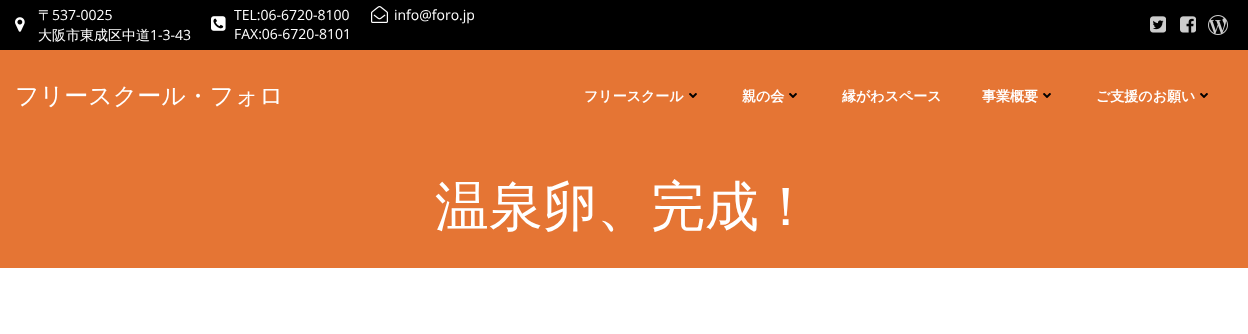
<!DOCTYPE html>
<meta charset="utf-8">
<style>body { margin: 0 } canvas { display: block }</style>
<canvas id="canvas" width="1248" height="334"></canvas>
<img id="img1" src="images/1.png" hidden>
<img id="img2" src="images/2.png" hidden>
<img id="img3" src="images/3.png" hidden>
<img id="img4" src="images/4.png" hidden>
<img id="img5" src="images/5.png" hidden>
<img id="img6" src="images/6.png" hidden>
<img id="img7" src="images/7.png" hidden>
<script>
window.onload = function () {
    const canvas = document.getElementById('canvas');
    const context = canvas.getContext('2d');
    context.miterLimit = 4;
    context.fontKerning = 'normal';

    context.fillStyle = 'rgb(229, 117, 52)';
    context.fillRect(0, 0, 1248, 334);
    context.fillStyle = 'rgb(0, 0, 0)';
    context.fillRect(0, 0, 1248, 50);
    context.drawImage(document.getElementById('img1'), 15, 17, 10, 15);
    context.drawImage(document.getElementById('img2'), 211, 16, 15, 15);
    context.drawImage(document.getElementById('img3'), 371, 6, 17, 17);
    context.drawImage(document.getElementById('img4'), 1150, 16, 16, 17);
    context.drawImage(document.getElementById('img5'), 1180, 16, 16, 17);
    context.drawImage(document.getElementById('img6'), 1208, 15, 20, 20);
    context.drawImage(document.getElementById('img7'), 689, 93, 8, 5);
    context.drawImage(document.getElementById('img7'), 789, 93, 8, 5);
    context.drawImage(document.getElementById('img7'), 1043, 93, 8, 5);
    context.drawImage(document.getElementById('img7'), 1200, 93, 8, 5);
    context.fillStyle = 'rgb(255, 255, 255)';
    context.fillRect(0, 268, 1248, 66);
    context.font = '500 14px WenQuanYi Zen Hei';
    context.fillText('〒', 38, 20);
    context.font = '14px Open Sans';
    context.fillText('537-0025', 52, 20);
    context.font = '500 14px WenQuanYi Zen Hei';
    context.fillText('大阪市東成区中道', 38, 40);
    context.font = '14px Open Sans';
    context.fillText('1-3-43', 150, 40);
    context.fillText('TEL:06-6720-8100', 234, 20);
    context.fillText('FAX:06-6720-8101', 234, 39);
    context.fillText('info@foro.jp', 394, 20);
    context.font = '500 24px WenQuanYi Zen Hei';
    context.fillText('フリースクール・フォロ', 15, 104);
    context.font = 'bold 14px WenQuanYi Zen Hei';
    context.fillText('フリースクール', 584, 101);
    context.fillText('親の会', 742, 101);
    context.fillText('縁がわスペース', 842, 101);
    context.fillText('事業概要', 982, 101);
    context.fillText('ご支援のお願い', 1096, 101);
    context.font = '500 54px WenQuanYi Zen Hei';
    context.fillText('温泉卵、完成！', 435, 225);
};
</script>
